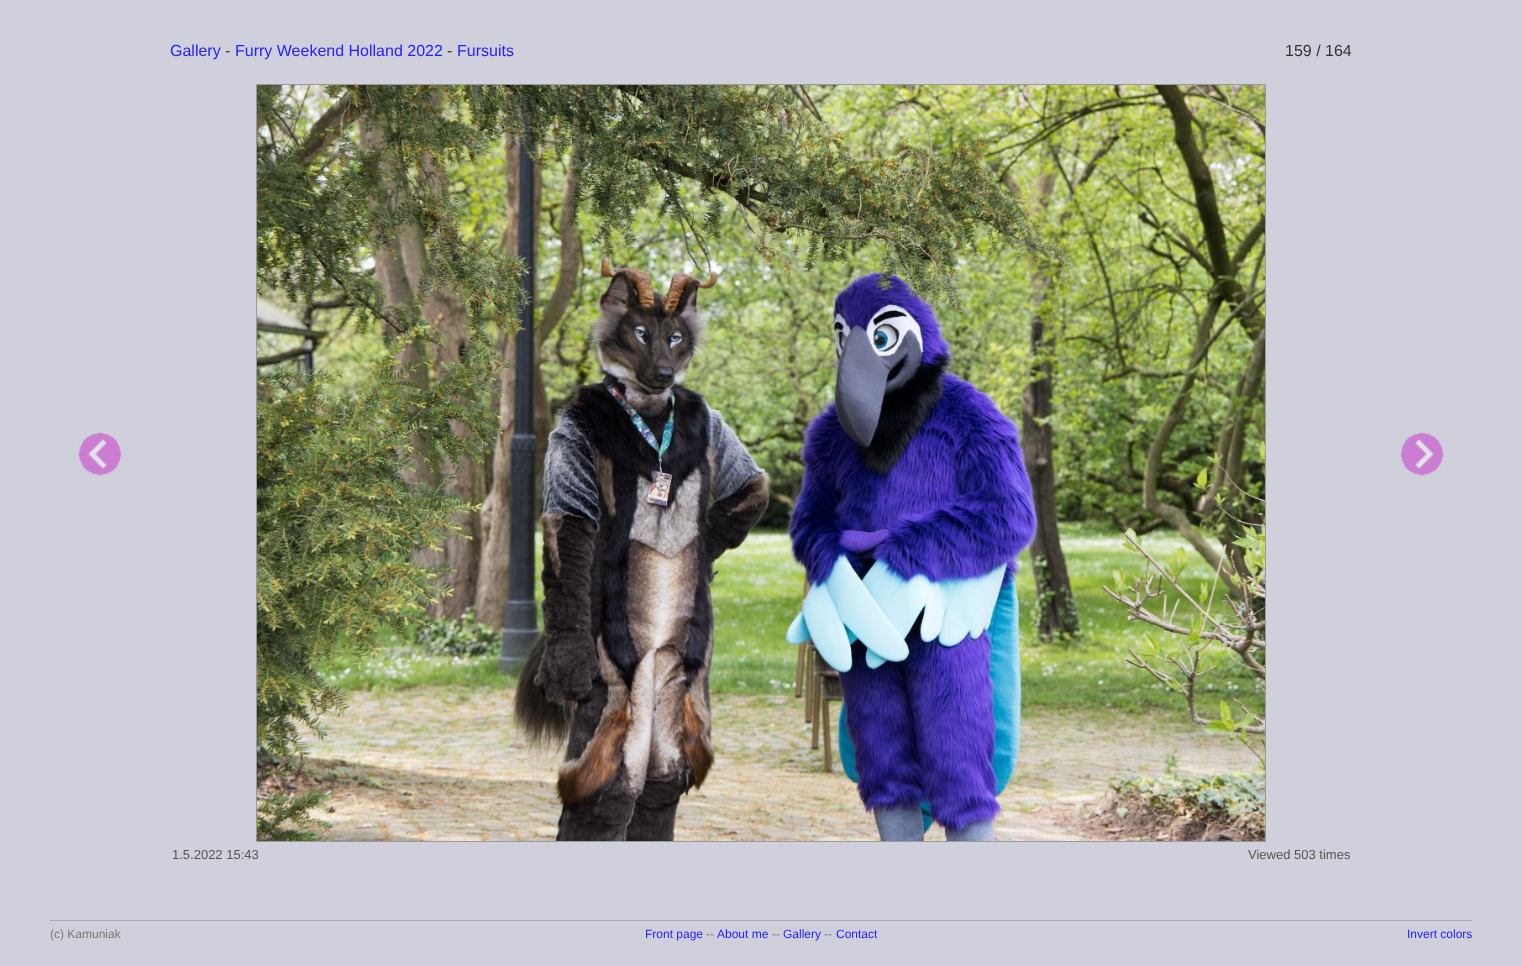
<!DOCTYPE html>
<meta charset="utf-8">
<style>body { margin: 0 } canvas { display: block }</style>
<canvas id="canvas" width="1522" height="966"></canvas>
<img id="img1" src="images/1.png" hidden>
<img id="img2" src="images/2.png" hidden>
<img id="img3" src="images/3.png" hidden>
<script>
window.onload = function () {
    const canvas = document.getElementById('canvas');
    const context = canvas.getContext('2d');
    context.miterLimit = 4;
    context.fontKerning = 'normal';

    context.fillStyle = 'rgb(208, 208, 221)';
    context.fillRect(0, 0, 1522, 966);
    context.drawImage(document.getElementById('img1'), 78, 432, 44, 45);
    context.strokeStyle = 'rgb(153, 153, 153)';
    context.strokeRect(256.5, 84.5, 1009, 757);
    context.drawImage(document.getElementById('img2'), 257, 85, 1008, 756);
    context.drawImage(document.getElementById('img3'), 1400, 432, 44, 45);
    context.fillStyle = 'rgb(170, 170, 170)';
    context.fillRect(50, 920, 1422, 1);
    context.font = '16px Liberation Sans';
    context.fillStyle = 'rgb(34, 34, 255)';
    context.fillText('Gallery', 170, 56);
    context.fillStyle = 'rgb(51, 51, 51)';
    context.fillText('-', 225, 56);
    context.fillStyle = 'rgb(34, 34, 255)';
    context.fillText('Furry Weekend Holland 2022', 235, 56);
    context.fillStyle = 'rgb(51, 51, 51)';
    context.fillText('-', 447, 56);
    context.fillStyle = 'rgb(34, 34, 255)';
    context.fillText('Fursuits', 457, 56);
    context.fillStyle = 'rgb(51, 51, 51)';
    context.fillText('159 / 164', 1285, 56);
    context.font = '13px Liberation Sans';
    context.fillStyle = 'rgb(85, 85, 85)';
    context.fillText('1.5.2022 15:43', 172, 859);
    context.fillText('Viewed 503 times', 1248, 859);
    context.font = '12px Liberation Sans';
    context.fillStyle = 'rgb(119, 119, 119)';
    context.fillText('(c) Kamuniak', 50, 938);
    context.fillStyle = 'rgb(34, 34, 255)';
    context.fillText('Front page', 645, 938);
    context.fillStyle = 'rgb(119, 119, 119)';
    context.fillText('--', 706, 938);
    context.fillStyle = 'rgb(34, 34, 255)';
    context.fillText('About me', 717, 938);
    context.fillStyle = 'rgb(119, 119, 119)';
    context.fillText('--', 772, 938);
    context.fillStyle = 'rgb(34, 34, 255)';
    context.fillText('Gallery', 783, 938);
    context.fillStyle = 'rgb(119, 119, 119)';
    context.fillText('--', 824, 938);
    context.fillStyle = 'rgb(34, 34, 255)';
    context.fillText('Contact', 836, 938);
    context.fillText('Invert colors', 1407, 938);
};
</script>
